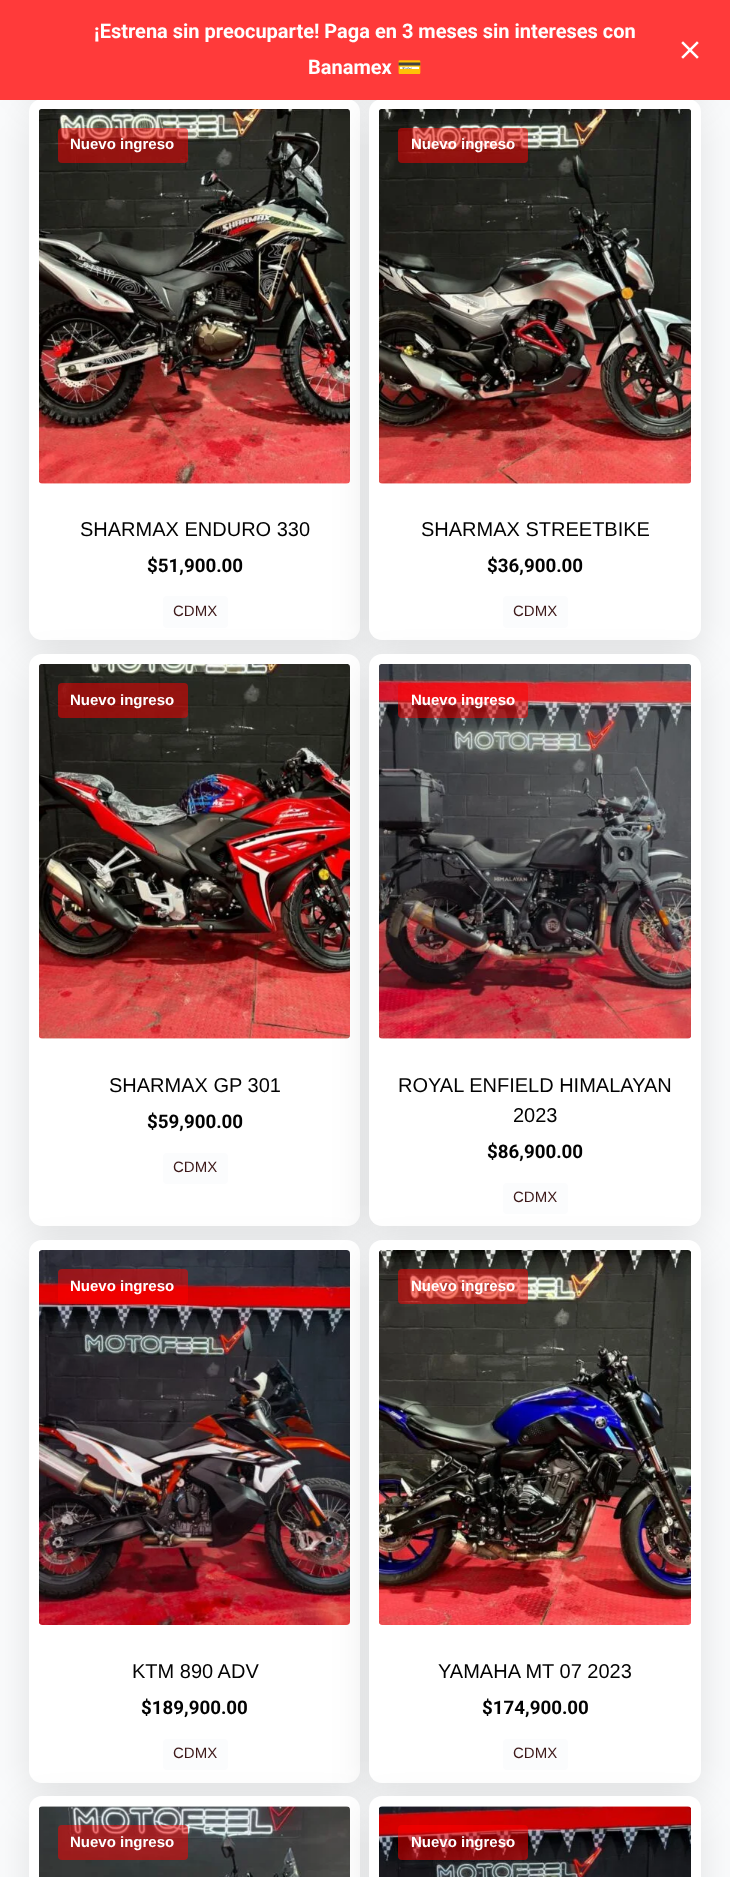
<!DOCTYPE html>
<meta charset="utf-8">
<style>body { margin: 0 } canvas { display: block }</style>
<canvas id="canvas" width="730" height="1877"></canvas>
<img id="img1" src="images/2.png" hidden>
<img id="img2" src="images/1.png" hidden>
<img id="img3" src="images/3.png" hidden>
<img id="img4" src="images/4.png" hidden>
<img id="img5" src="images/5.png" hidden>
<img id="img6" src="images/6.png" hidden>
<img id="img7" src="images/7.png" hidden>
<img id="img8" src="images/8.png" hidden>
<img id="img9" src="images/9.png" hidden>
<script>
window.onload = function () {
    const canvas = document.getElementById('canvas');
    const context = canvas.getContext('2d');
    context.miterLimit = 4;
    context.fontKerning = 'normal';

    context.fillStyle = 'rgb(250, 251, 252)';
    context.fillRect(0, 0, 730, 1877);
    context.fillStyle = 'rgba(0, 0, 0, 0.1)';
    context.filter = 'blur(19px)';
    context.beginPath();
    context.roundRect(29, -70, 331, 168, 13);
    context.fill();
    context.filter = 'none';
    context.filter = 'blur(19px)';
    context.beginPath();
    context.roundRect(369, -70, 332, 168, 13);
    context.fill();
    context.filter = 'none';
    context.filter = 'blur(19px)';
    context.beginPath();
    context.roundRect(29, 111, 331, 542, 13);
    context.fill();
    context.filter = 'none';
    context.fillStyle = 'rgb(255, 255, 255)';
    context.beginPath();
    context.roundRect(29, 99, 331, 541, 13);
    context.fill();
    context.drawImage(document.getElementById('img1'), 39, 109, 311, 375);
    context.fillStyle = 'rgba(0, 0, 0, 0.1)';
    context.filter = 'blur(19px)';
    context.beginPath();
    context.roundRect(369, 111, 332, 542, 13);
    context.fill();
    context.filter = 'none';
    context.fillStyle = 'rgb(255, 255, 255)';
    context.beginPath();
    context.roundRect(369, 99, 332, 541, 13);
    context.fill();
    context.fillStyle = 'rgb(255, 58, 58)';
    context.fillRect(0, 0, 730, 100);
    context.drawImage(document.getElementById('img2'), 681, 41, 18, 18);
    context.fillStyle = 'rgba(255, 0, 0, 0.51)';
    context.beginPath();
    context.roundRect(58, 128, 130, 35, 4);
    context.fill();
    context.fillStyle = 'rgb(251, 252, 253)';
    context.beginPath();
    context.roundRect(163, 596, 65, 32, 4);
    context.fill();
    context.drawImage(document.getElementById('img3'), 379, 109, 312, 375);
    context.fillStyle = 'rgba(255, 0, 0, 0.51)';
    context.beginPath();
    context.roundRect(398, 128, 130, 35, 4);
    context.fill();
    context.fillStyle = 'rgb(251, 252, 253)';
    context.beginPath();
    context.roundRect(503, 596, 65, 32, 4);
    context.fill();
    context.fillStyle = 'rgba(0, 0, 0, 0.1)';
    context.filter = 'blur(19px)';
    context.beginPath();
    context.roundRect(29, 666, 331, 573, 13);
    context.fill();
    context.filter = 'none';
    context.fillStyle = 'rgb(255, 255, 255)';
    context.beginPath();
    context.roundRect(29, 654, 331, 572, 13);
    context.fill();
    context.drawImage(document.getElementById('img4'), 39, 664, 311, 375);
    context.fillStyle = 'rgba(255, 0, 0, 0.51)';
    context.beginPath();
    context.roundRect(58, 683, 130, 35, 4);
    context.fill();
    context.fillStyle = 'rgb(251, 252, 253)';
    context.beginPath();
    context.roundRect(163, 1153, 65, 31, 4);
    context.fill();
    context.fillStyle = 'rgba(0, 0, 0, 0.1)';
    context.filter = 'blur(19px)';
    context.beginPath();
    context.roundRect(369, 666, 332, 573, 13);
    context.fill();
    context.filter = 'none';
    context.fillStyle = 'rgb(255, 255, 255)';
    context.beginPath();
    context.roundRect(369, 654, 332, 572, 13);
    context.fill();
    context.drawImage(document.getElementById('img5'), 379, 664, 312, 375);
    context.fillStyle = 'rgba(255, 0, 0, 0.51)';
    context.beginPath();
    context.roundRect(398, 683, 130, 35, 4);
    context.fill();
    context.fillStyle = 'rgb(251, 252, 253)';
    context.beginPath();
    context.roundRect(503, 1183, 65, 31, 4);
    context.fill();
    context.fillStyle = 'rgba(0, 0, 0, 0.1)';
    context.filter = 'blur(19px)';
    context.beginPath();
    context.roundRect(29, 1253, 331, 542, 13);
    context.fill();
    context.filter = 'none';
    context.fillStyle = 'rgb(255, 255, 255)';
    context.beginPath();
    context.roundRect(29, 1240, 331, 543, 13);
    context.fill();
    context.drawImage(document.getElementById('img6'), 39, 1250, 311, 375);
    context.fillStyle = 'rgba(255, 0, 0, 0.51)';
    context.beginPath();
    context.roundRect(58, 1269, 130, 35, 4);
    context.fill();
    context.fillStyle = 'rgb(251, 252, 253)';
    context.beginPath();
    context.roundRect(163, 1739, 65, 31, 4);
    context.fill();
    context.fillStyle = 'rgba(0, 0, 0, 0.1)';
    context.filter = 'blur(19px)';
    context.beginPath();
    context.roundRect(369, 1253, 332, 542, 13);
    context.fill();
    context.filter = 'none';
    context.fillStyle = 'rgb(255, 255, 255)';
    context.beginPath();
    context.roundRect(369, 1240, 332, 543, 13);
    context.fill();
    context.drawImage(document.getElementById('img7'), 379, 1250, 312, 375);
    context.fillStyle = 'rgba(255, 0, 0, 0.51)';
    context.beginPath();
    context.roundRect(398, 1269, 130, 35, 4);
    context.fill();
    context.fillStyle = 'rgb(251, 252, 253)';
    context.beginPath();
    context.roundRect(503, 1739, 65, 31, 4);
    context.fill();
    context.fillStyle = 'rgba(0, 0, 0, 0.1)';
    context.filter = 'blur(19px)';
    context.beginPath();
    context.roundRect(29, 1809, 331, 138, 13);
    context.fill();
    context.filter = 'none';
    context.fillStyle = 'rgb(255, 255, 255)';
    context.beginPath();
    context.roundRect(29, 1796, 331, 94, 13);
    context.fill();
    context.drawImage(document.getElementById('img8'), 39, 1806, 311, 71);
    context.fillStyle = 'rgba(255, 0, 0, 0.51)';
    context.beginPath();
    context.roundRect(58, 1825, 130, 35, 4);
    context.fill();
    context.fillStyle = 'rgba(0, 0, 0, 0.1)';
    context.filter = 'blur(19px)';
    context.beginPath();
    context.roundRect(369, 1809, 332, 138, 13);
    context.fill();
    context.filter = 'none';
    context.fillStyle = 'rgb(255, 255, 255)';
    context.beginPath();
    context.roundRect(369, 1796, 332, 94, 13);
    context.fill();
    context.drawImage(document.getElementById('img9'), 379, 1806, 312, 71);
    context.fillStyle = 'rgba(255, 0, 0, 0.51)';
    context.beginPath();
    context.roundRect(398, 1825, 130, 35, 4);
    context.fill();
    context.font = 'bold 20px Roboto';
    context.fillStyle = 'rgb(255, 255, 255)';
    context.fillText('¡Estrena sin preocuparte! Paga en 3 meses sin intereses con', 94, 38);
    context.fillText('Banamex', 308, 74);
    context.font = 'bold 20px Noto Color Emoji';
    context.fillText('💳', 397, 74);
    context.font = 'bold 15px Liberation Sans';
    context.fillText('Nuevo ingreso', 70, 149);
    context.font = '20px Liberation Sans';
    context.fillStyle = 'rgb(2, 2, 2)';
    context.fillText('SHARMAX ENDURO 330', 80, 536);
    context.font = 'bold 18.75px Roboto';
    context.fillText('$51,900.00', 147, 572);
    context.font = '15px Liberation Sans';
    context.fillStyle = 'rgb(61, 25, 25)';
    context.fillText('CDMX', 173, 616);
    context.font = 'bold 15px Liberation Sans';
    context.fillStyle = 'rgb(255, 255, 255)';
    context.fillText('Nuevo ingreso', 411, 149);
    context.font = '20px Liberation Sans';
    context.fillStyle = 'rgb(2, 2, 2)';
    context.fillText('SHARMAX STREETBIKE', 421, 536);
    context.font = 'bold 18.75px Roboto';
    context.fillText('$36,900.00', 487, 572);
    context.font = '15px Liberation Sans';
    context.fillStyle = 'rgb(61, 25, 25)';
    context.fillText('CDMX', 513, 616);
    context.font = 'bold 15px Liberation Sans';
    context.fillStyle = 'rgb(255, 255, 255)';
    context.fillText('Nuevo ingreso', 70, 705);
    context.font = '20px Liberation Sans';
    context.fillStyle = 'rgb(2, 2, 2)';
    context.fillText('SHARMAX GP 301', 109, 1092);
    context.font = 'bold 18.75px Roboto';
    context.fillText('$59,900.00', 147, 1128);
    context.font = '15px Liberation Sans';
    context.fillStyle = 'rgb(61, 25, 25)';
    context.fillText('CDMX', 173, 1172);
    context.font = 'bold 15px Liberation Sans';
    context.fillStyle = 'rgb(255, 255, 255)';
    context.fillText('Nuevo ingreso', 411, 705);
    context.font = '20px Liberation Sans';
    context.fillStyle = 'rgb(2, 2, 2)';
    context.fillText('ROYAL ENFIELD HIMALAYAN', 398, 1092);
    context.fillText('2023', 513, 1122);
    context.font = 'bold 18.75px Roboto';
    context.fillText('$86,900.00', 487, 1158);
    context.font = '15px Liberation Sans';
    context.fillStyle = 'rgb(61, 25, 25)';
    context.fillText('CDMX', 513, 1202);
    context.font = 'bold 15px Liberation Sans';
    context.fillStyle = 'rgb(255, 255, 255)';
    context.fillText('Nuevo ingreso', 70, 1291);
    context.font = '20px Liberation Sans';
    context.fillStyle = 'rgb(2, 2, 2)';
    context.fillText('KTM 890 ADV', 132, 1678);
    context.font = 'bold 18.75px Roboto';
    context.fillText('$189,900.00', 141, 1714);
    context.font = '15px Liberation Sans';
    context.fillStyle = 'rgb(61, 25, 25)';
    context.fillText('CDMX', 173, 1758);
    context.font = 'bold 15px Liberation Sans';
    context.fillStyle = 'rgb(255, 255, 255)';
    context.fillText('Nuevo ingreso', 411, 1291);
    context.font = '20px Liberation Sans';
    context.fillStyle = 'rgb(2, 2, 2)';
    context.fillText('YAMAHA MT 07 2023', 438, 1678);
    context.font = 'bold 18.75px Roboto';
    context.fillText('$174,900.00', 482, 1714);
    context.font = '15px Liberation Sans';
    context.fillStyle = 'rgb(61, 25, 25)';
    context.fillText('CDMX', 513, 1758);
    context.font = 'bold 15px Liberation Sans';
    context.fillStyle = 'rgb(255, 255, 255)';
    context.fillText('Nuevo ingreso', 70, 1847);
    context.fillText('Nuevo ingreso', 411, 1847);
};
</script>
